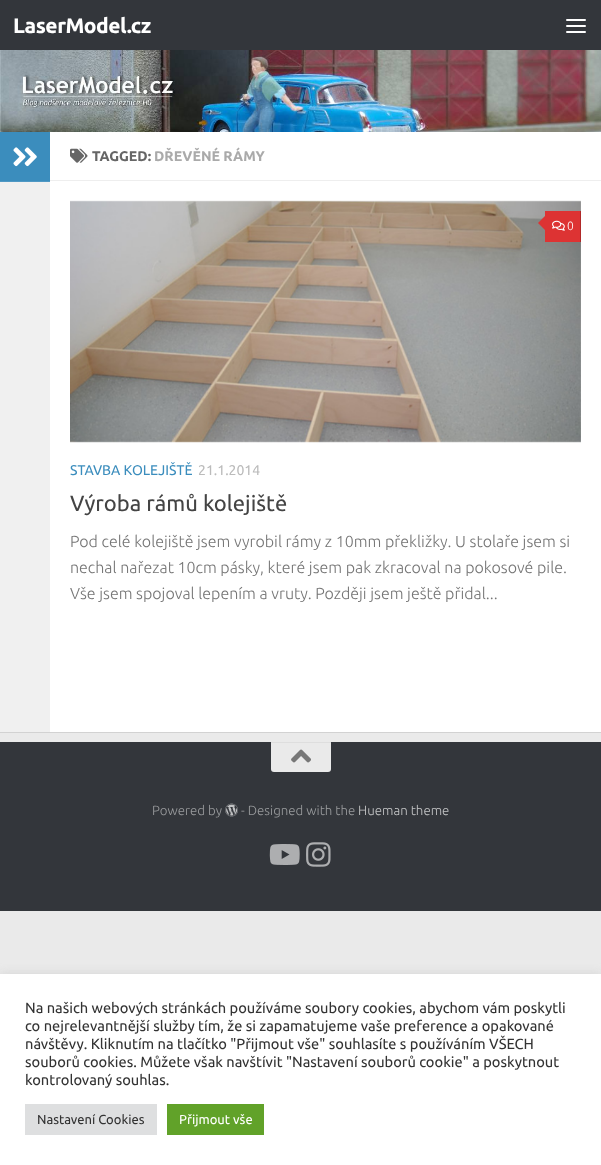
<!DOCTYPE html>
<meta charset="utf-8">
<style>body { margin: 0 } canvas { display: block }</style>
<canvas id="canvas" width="601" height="1165"></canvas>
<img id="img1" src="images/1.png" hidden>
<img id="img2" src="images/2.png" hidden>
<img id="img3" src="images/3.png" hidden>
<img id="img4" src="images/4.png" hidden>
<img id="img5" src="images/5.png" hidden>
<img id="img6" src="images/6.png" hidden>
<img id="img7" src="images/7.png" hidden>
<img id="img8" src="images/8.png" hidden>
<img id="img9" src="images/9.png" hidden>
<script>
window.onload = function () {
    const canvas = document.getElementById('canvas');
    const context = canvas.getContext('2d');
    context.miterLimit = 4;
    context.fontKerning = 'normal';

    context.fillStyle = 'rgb(234, 234, 234)';
    context.fillRect(0, 0, 601, 1165);
    context.fillStyle = 'rgb(51, 54, 59)';
    context.fillRect(0, 0, 601, 50);
    context.fillStyle = 'rgb(255, 255, 255)';
    context.beginPath();
    context.roundRect(566, 19, 20, 2, 1);
    context.fill();
    context.beginPath();
    context.roundRect(566, 25, 20, 2, 1);
    context.fill();
    context.beginPath();
    context.roundRect(566, 31, 20, 2, 1);
    context.fill();
    context.fillStyle = 'rgba(0, 0, 0, 0.1)';
    context.filter = 'blur(0.5px)';
    context.beginPath();
    context.rect(0, 133, 601, 600);
    context.fill();
    context.filter = 'none';
    context.drawImage(document.getElementById('img1'), 0, 50, 601, 82);
    context.fillStyle = 'rgb(255, 255, 255)';
    context.fillRect(50, 132, 551, 600);
    context.fillStyle = 'rgb(240, 240, 240)';
    context.fillRect(0, 182, 50, 550);
    context.fillStyle = 'rgb(59, 141, 189)';
    context.fillRect(0, 132, 50, 49);
    context.fillStyle = 'rgb(79, 152, 196)';
    context.fillRect(0, 181, 50, 1);
    context.drawImage(document.getElementById('img2'), 13, 147, 24, 20);
    context.fillStyle = 'rgb(238, 238, 238)';
    context.fillRect(50, 180, 551, 1);
    context.drawImage(document.getElementById('img3'), 70, 148, 18, 15);
    context.drawImage(document.getElementById('img4'), 70, 200, 511, 243);
    context.fillStyle = 'rgb(221, 51, 51)';
    context.fillRect(545, 211, 35, 31);
    context.fillStyle = 'rgb(177, 41, 41)';
    context.fillRect(580, 211, 1, 31);
    context.fillStyle = 'rgb(221, 51, 51)';
    context.beginPath();
    context.moveTo(547, 214);
    context.lineTo(547, 232);
    context.lineTo(538, 223);
    context.closePath();
    context.fill();
    context.drawImage(document.getElementById('img5'), 552, 220, 13, 11);
    context.fillStyle = 'rgb(51, 54, 59)';
    context.fillRect(0, 742, 601, 169);
    context.fillStyle = 'rgb(234, 234, 234)';
    context.beginPath();
    context.roundRect(271, 742, 60, 30, [0, 0, 3, 3]);
    context.fill();
    context.fillStyle = 'rgb(222, 222, 222)';
    context.fillRect(271, 742, 60, 1);
    context.drawImage(document.getElementById('img6'), 291, 749, 20, 14);
    context.drawImage(document.getElementById('img7'), 225, 803, 13, 14);
    context.drawImage(document.getElementById('img8'), 269, 844, 31, 21);
    context.drawImage(document.getElementById('img9'), 306, 842, 25, 25);
    context.fillStyle = 'rgba(172, 171, 171, 0.3)';
    context.filter = 'blur(5px)';
    context.beginPath();
    context.rect(0, 973, 601, 191);
    context.fill();
    context.filter = 'none';
    context.fillStyle = 'rgb(255, 255, 255)';
    context.fillRect(0, 974, 601, 191);
    context.fillStyle = 'rgb(222, 223, 224)';
    context.fillRect(25, 1104, 132, 31);
    context.fillStyle = 'rgb(97, 162, 41)';
    context.fillRect(167, 1104, 97, 31);
    context.save();
    context.beginPath();
    context.rect(13, 0, 138, 50);
    context.clip();
    context.letterSpacing = '-0.5px';
    context.font = 'bold 21px Ubuntu';
    context.fillStyle = 'rgb(255, 255, 255)';
    context.fillText('LaserModel.cz', 13, 33);
    context.restore();
    context.font = 'bold 14px Ubuntu';
    context.fillStyle = 'rgb(102, 102, 102)';
    context.fillText('TAGGED:', 92, 161);
    context.fillStyle = 'rgb(170, 170, 170)';
    context.fillText('DŘEVĚNÉ RÁMY', 154, 161);
    context.font = '300 12px Ubuntu';
    context.fillStyle = 'rgb(255, 255, 255)';
    context.fillText('0', 567, 230);
    context.font = '14px Ubuntu';
    context.fillStyle = 'rgb(59, 141, 189)';
    context.fillText('STAVBA KOLEJIŠTĚ', 70, 475);
    context.fillStyle = 'rgb(187, 187, 187)';
    context.fillText('21.1.2014', 198, 475);
    context.font = '22px Ubuntu';
    context.fillStyle = 'rgb(68, 68, 68)';
    context.fillText('Výroba rámů kolejiště', 70, 511);
    context.font = '300 16px Ubuntu';
    context.fillStyle = 'rgb(118, 118, 118)';
    context.fillText('Pod celé kolejiště jsem vyrobil rámy z 10mm překližky. U stolaře jsem si', 70, 547);
    context.fillText('nechal nařezat 10cm pásky, které jsem pak zkracoval na pokosové pile.', 70, 573);
    context.fillText('Vše jsem spojoval lepením a vruty. Později jsem ještě přidal...', 70, 599);
    context.font = '300 13.25px Ubuntu';
    context.fillStyle = 'rgb(153, 155, 157)';
    context.fillText('Powered by', 152, 815);
    context.fillText('- Designed with the', 241, 815);
    context.fillStyle = 'rgb(194, 195, 196)';
    context.fillText('Hueman theme', 358, 815);
    context.font = '14.65px Ubuntu';
    context.fillStyle = 'rgb(51, 51, 51)';
    context.fillText('Na našich webových stránkách používáme soubory cookies, abychom vám poskytli', 25, 1013);
    context.fillText('co nejrelevantnější služby tím, že si zapamatujeme vaše preference a opakované', 25, 1031);
    context.fillText('návštěvy. Kliknutím na tlačítko "Přijmout vše" souhlasíte s používáním VŠECH', 25, 1049);
    context.fillText('souborů cookies. Můžete však navštívit "Nastavení souborů cookie" a poskytnout', 25, 1067);
    context.fillText('kontrolovaný souhlas.', 25, 1085);
    context.font = '13px Ubuntu';
    context.fillText('Nastavení Cookies', 37, 1124);
    context.fillStyle = 'rgb(255, 255, 255)';
    context.fillText('Přijmout vše', 179, 1124);
};
</script>
